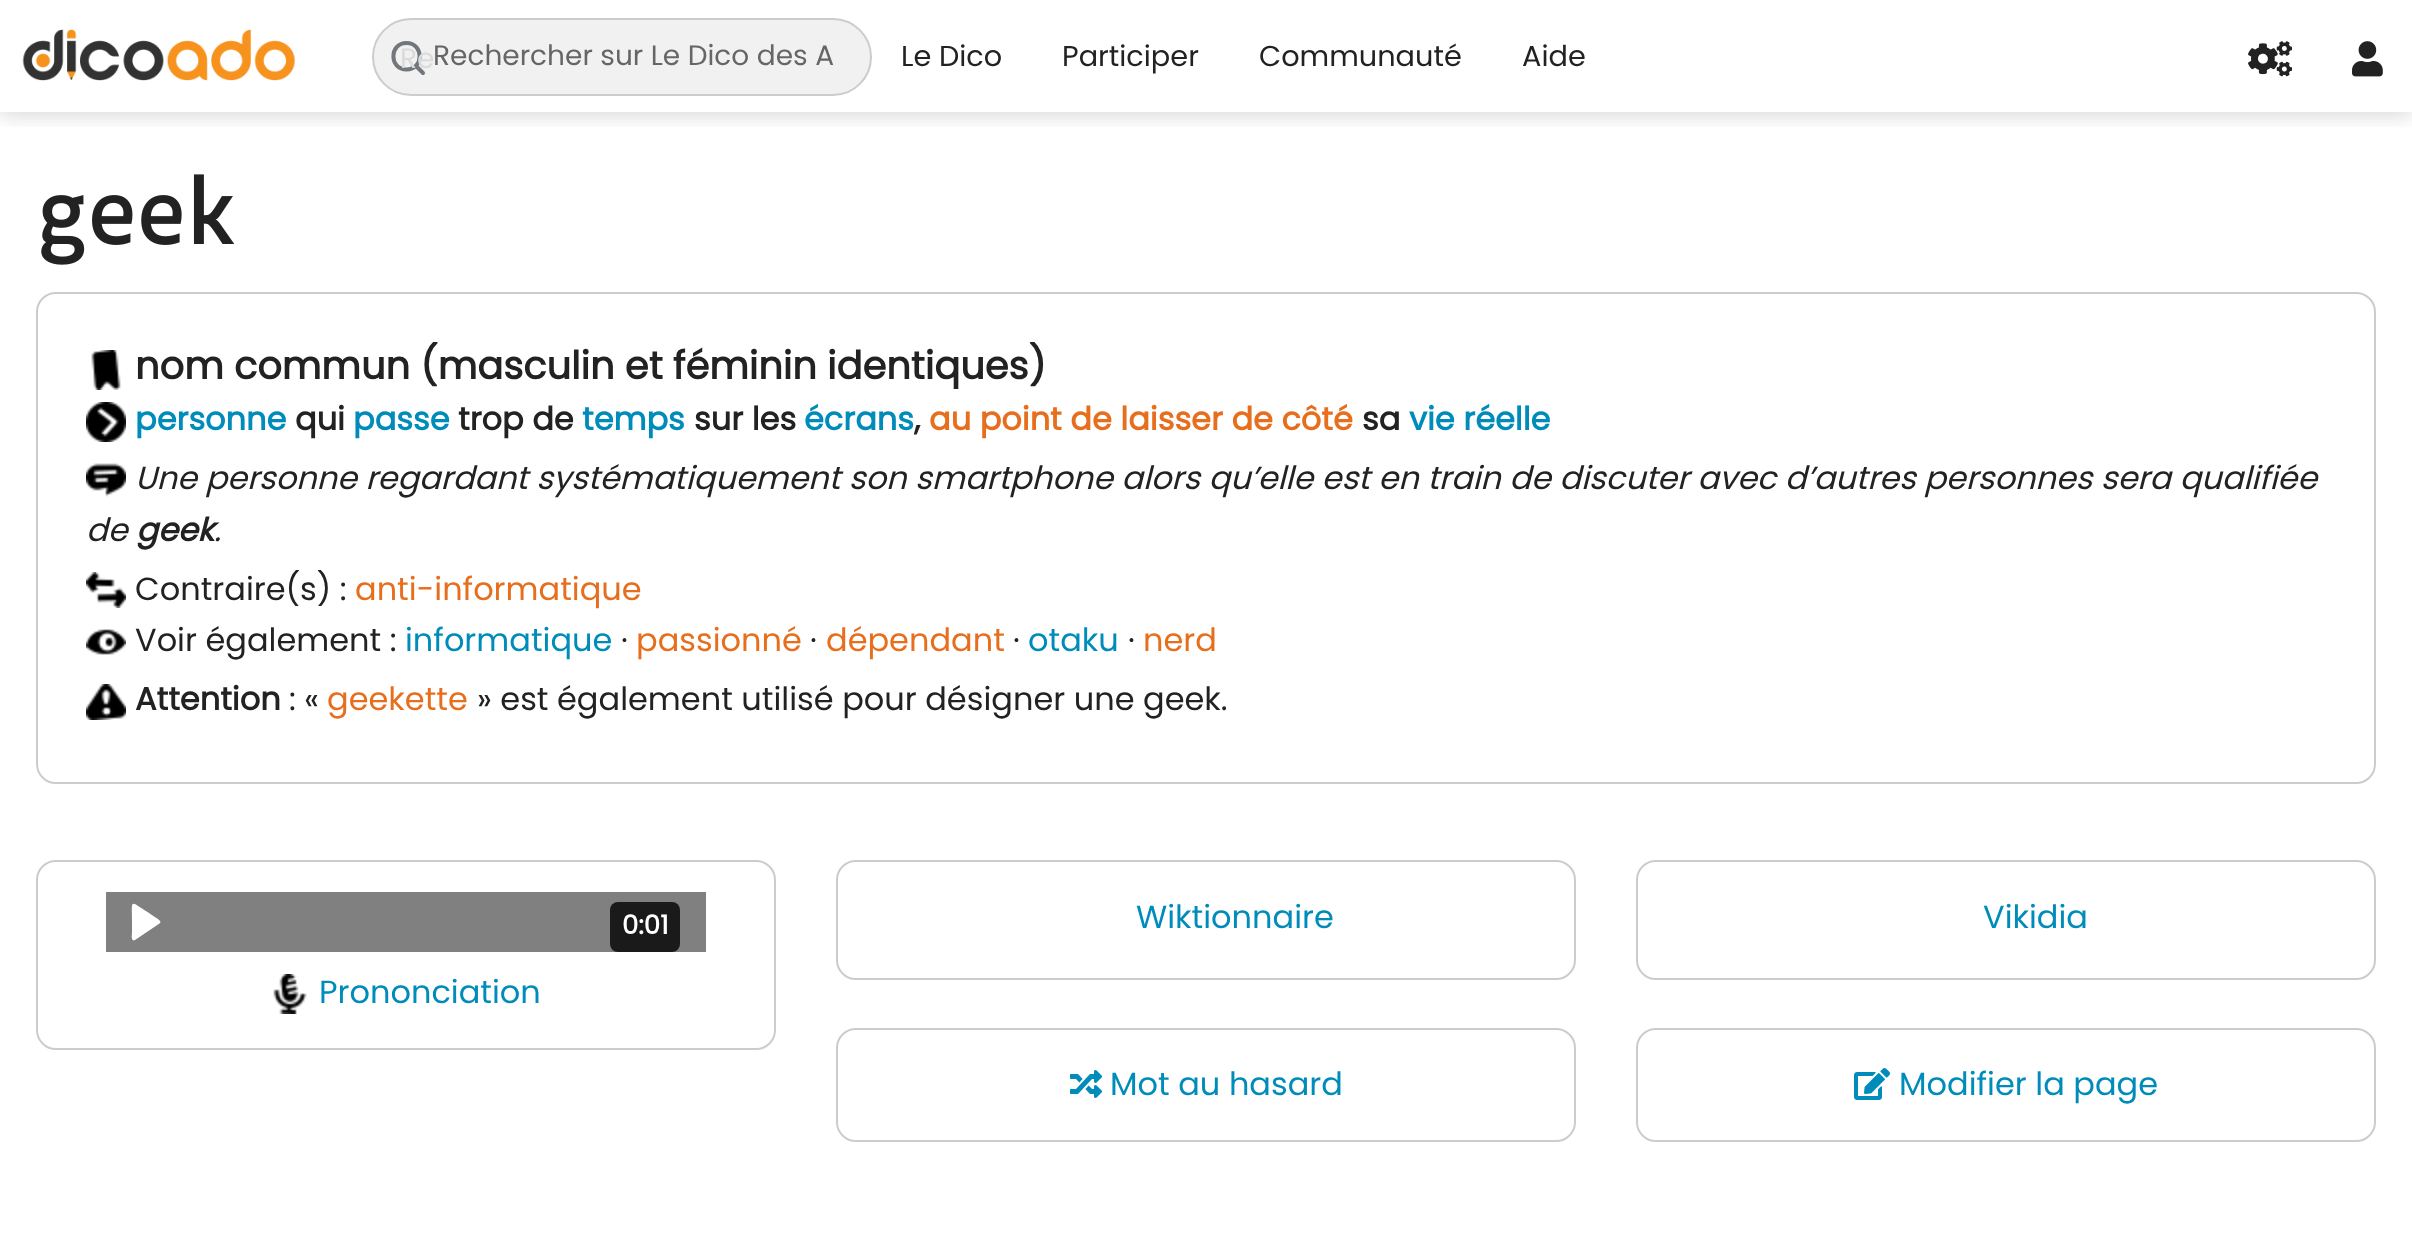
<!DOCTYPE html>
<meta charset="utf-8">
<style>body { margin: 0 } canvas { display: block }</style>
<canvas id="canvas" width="2412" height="1239"></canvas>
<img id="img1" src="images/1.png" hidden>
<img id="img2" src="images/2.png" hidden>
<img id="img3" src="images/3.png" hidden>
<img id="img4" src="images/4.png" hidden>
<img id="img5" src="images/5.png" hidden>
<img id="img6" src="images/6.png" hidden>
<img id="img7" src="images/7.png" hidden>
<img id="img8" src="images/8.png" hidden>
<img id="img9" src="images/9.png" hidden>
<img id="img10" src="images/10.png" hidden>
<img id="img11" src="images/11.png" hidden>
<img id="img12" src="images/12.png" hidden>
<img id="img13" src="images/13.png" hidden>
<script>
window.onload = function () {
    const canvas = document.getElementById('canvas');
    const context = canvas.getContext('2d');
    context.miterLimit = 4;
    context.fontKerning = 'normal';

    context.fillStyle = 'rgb(255, 255, 255)';
    context.fillRect(0, 0, 2412, 1239);
    context.save();
    context.beginPath();
    context.rect(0, 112, 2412, 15);
    context.clip();
    context.fillStyle = 'rgba(0, 0, 0, 0.15)';
    context.filter = 'blur(10px)';
    context.beginPath();
    context.rect(0, 4, 2412, 112);
    context.fill();
    context.filter = 'none';
    context.restore();
    context.drawImage(document.getElementById('img1'), 22, 29, 274, 52);
    context.fillStyle = 'rgb(241, 241, 241)';
    context.beginPath();
    context.roundRect(373, 19, 498, 76, 38);
    context.fill();
    context.strokeStyle = 'rgb(204, 204, 204)';
    context.lineWidth = 2;
    context.stroke();
    context.beginPath();
    context.moveTo(406.5, 69.5);
    context.bezierCurveTo(424, 69.5, 424, 43, 406.5, 43);
    context.bezierCurveTo(389, 43, 389, 69.5, 406.5, 69.5);
    context.closePath();
    context.moveTo(423, 73);
    context.lineTo(416, 66);
    context.strokeStyle = 'rgb(114, 119, 125)';
    context.lineWidth = 4;
    context.lineCap = 'round';
    context.lineJoin = 'round';
    context.stroke();
    context.drawImage(document.getElementById('img2'), 2248, 41, 45, 36);
    context.drawImage(document.getElementById('img3'), 2352, 41, 31, 36);
    context.drawImage(document.getElementById('img4'), 41, 174, 194, 91);
    context.beginPath();
    context.roundRect(37, 293, 2338, 490, 19);
    context.strokeStyle = 'rgb(204, 204, 204)';
    context.lineWidth = 2;
    context.lineJoin = 'miter';
    context.stroke();
    context.drawImage(document.getElementById('img5'), 91, 350, 30, 40);
    context.drawImage(document.getElementById('img6'), 86, 402, 40, 40);
    context.drawImage(document.getElementById('img7'), 86, 463, 40, 34);
    context.drawImage(document.getElementById('img8'), 86, 572, 40, 36);
    context.drawImage(document.getElementById('img9'), 86, 629, 40, 26);
    context.drawImage(document.getElementById('img10'), 86, 684, 40, 36);
    context.beginPath();
    context.roundRect(37, 861, 738, 188, 19);
    context.stroke();
    context.fillStyle = 'rgb(128, 128, 128)';
    context.fillRect(106, 892, 600, 60);
    context.fillStyle = 'rgb(255, 255, 255)';
    context.beginPath();
    context.moveTo(135, 940);
    context.lineTo(133.5, 940.5);
    context.bezierCurveTo(131, 939.5, 132, 934, 132, 933);
    context.lineTo(132, 922);
    context.bezierCurveTo(132, 899, 129, 900, 147.5, 912);
    context.lineTo(155.5, 917.5);
    context.bezierCurveTo(156, 918, 163, 921.5, 159.5, 923.5);
    context.closePath();
    context.fill();
    context.fillStyle = 'rgb(26, 26, 26)';
    context.beginPath();
    context.roundRect(610, 902, 70, 50, 8);
    context.fill();
    context.drawImage(document.getElementById('img11'), 273, 974, 34, 40);
    context.beginPath();
    context.roundRect(837, 861, 738, 118, 19);
    context.stroke();
    context.beginPath();
    context.roundRect(1637, 861, 738, 118, 19);
    context.stroke();
    context.beginPath();
    context.roundRect(837, 1029, 738, 112, 19);
    context.stroke();
    context.drawImage(document.getElementById('img12'), 1070, 1070, 32, 28);
    context.beginPath();
    context.roundRect(1637, 1029, 738, 112, 19);
    context.stroke();
    context.drawImage(document.getElementById('img13'), 1854, 1068, 36, 32);
    context.font = '28px Poppins';
    context.fillStyle = 'rgb(218, 219, 219)';
    context.fillText('Re', 400, 68);
    context.fillStyle = 'rgb(102, 102, 102)';
    context.fillText('Rechercher sur Le Dico des A', 433, 65);
    context.font = '28.75px Poppins';
    context.fillStyle = 'rgb(34, 34, 34)';
    context.fillText('Le Dico', 901, 66);
    context.fillText('Participer', 1062, 66);
    context.fillText('Communauté', 1259, 66);
    context.fillText('Aide', 1522, 66);
    context.font = 'bold 38.4px Poppins';
    context.fillText('nom commun (masculin et féminin identiques)', 135, 379);
    context.font = 'bold 32px Poppins';
    context.fillStyle = 'rgb(0, 140, 186)';
    context.fillText('personne', 135, 430);
    context.fillStyle = 'rgb(34, 34, 34)';
    context.fillText('qui', 295, 430);
    context.fillStyle = 'rgb(0, 140, 186)';
    context.fillText('passe', 353, 430);
    context.fillStyle = 'rgb(34, 34, 34)';
    context.fillText('trop de', 458, 430);
    context.fillStyle = 'rgb(0, 140, 186)';
    context.fillText('temps', 582, 430);
    context.fillStyle = 'rgb(34, 34, 34)';
    context.fillText('sur les', 694, 430);
    context.fillStyle = 'rgb(0, 140, 186)';
    context.fillText('écrans', 804, 430);
    context.fillStyle = 'rgb(34, 34, 34)';
    context.fillText(',', 914, 430);
    context.fillStyle = 'rgb(231, 110, 28)';
    context.fillText('au point de laisser de côté', 929, 430);
    context.fillStyle = 'rgb(34, 34, 34)';
    context.fillText('sa', 1362, 430);
    context.fillStyle = 'rgb(0, 140, 186)';
    context.fillText('vie réelle', 1409, 430);
    context.font = 'italic 32px Poppins';
    context.fillStyle = 'rgb(34, 34, 34)';
    context.fillText('Une personne regardant systématiquement son smartphone alors qu’elle est en train de discuter avec d’autres personnes sera qualifiée', 135, 489);
    context.fillText('de', 86, 541);
    context.font = 'italic bold 32px Poppins';
    context.fillText('geek', 136, 541);
    context.font = 'italic 32px Poppins';
    context.fillText('.', 214, 541);
    context.font = '32px Poppins';
    context.fillText('Contraire(s) :', 135, 600);
    context.fillStyle = 'rgb(231, 110, 28)';
    context.fillText('anti-informatique', 355, 600);
    context.fillStyle = 'rgb(34, 34, 34)';
    context.fillText('Voir également :', 135, 651);
    context.fillStyle = 'rgb(0, 140, 186)';
    context.fillText('informatique', 405, 651);
    context.fillStyle = 'rgb(34, 34, 34)';
    context.fillText('·', 621, 651);
    context.fillStyle = 'rgb(231, 110, 28)';
    context.fillText('passionné', 636, 651);
    context.fillStyle = 'rgb(34, 34, 34)';
    context.fillText('·', 810, 651);
    context.fillStyle = 'rgb(231, 110, 28)';
    context.fillText('dépendant', 826, 651);
    context.fillStyle = 'rgb(34, 34, 34)';
    context.fillText('·', 1013, 651);
    context.fillStyle = 'rgb(0, 140, 186)';
    context.fillText('otaku', 1028, 651);
    context.fillStyle = 'rgb(34, 34, 34)';
    context.fillText('·', 1128, 651);
    context.fillStyle = 'rgb(231, 110, 28)';
    context.fillText('nerd', 1143, 651);
    context.font = 'bold 32px Poppins';
    context.fillStyle = 'rgb(34, 34, 34)';
    context.fillText('Attention', 135, 710);
    context.font = '32px Poppins';
    context.fillText(': «', 289, 710);
    context.fillStyle = 'rgb(231, 110, 28)';
    context.fillText('geekette', 327, 710);
    context.fillStyle = 'rgb(34, 34, 34)';
    context.fillText('» est également utilisé pour désigner une geek.', 477, 710);
    context.font = 'bold 26px Poppins';
    context.fillStyle = 'rgb(255, 255, 255)';
    context.fillText('0:01', 622, 934);
    context.font = '32px Poppins';
    context.fillStyle = 'rgb(0, 140, 186)';
    context.fillText('Prononciation', 319, 1003);
    context.fillText('Wiktionnaire', 1136, 928);
    context.fillText('Vikidia', 1983, 928);
    context.fillText('Mot au hasard', 1110, 1095);
    context.fillText('Modifier la page', 1899, 1095);
};
</script>
